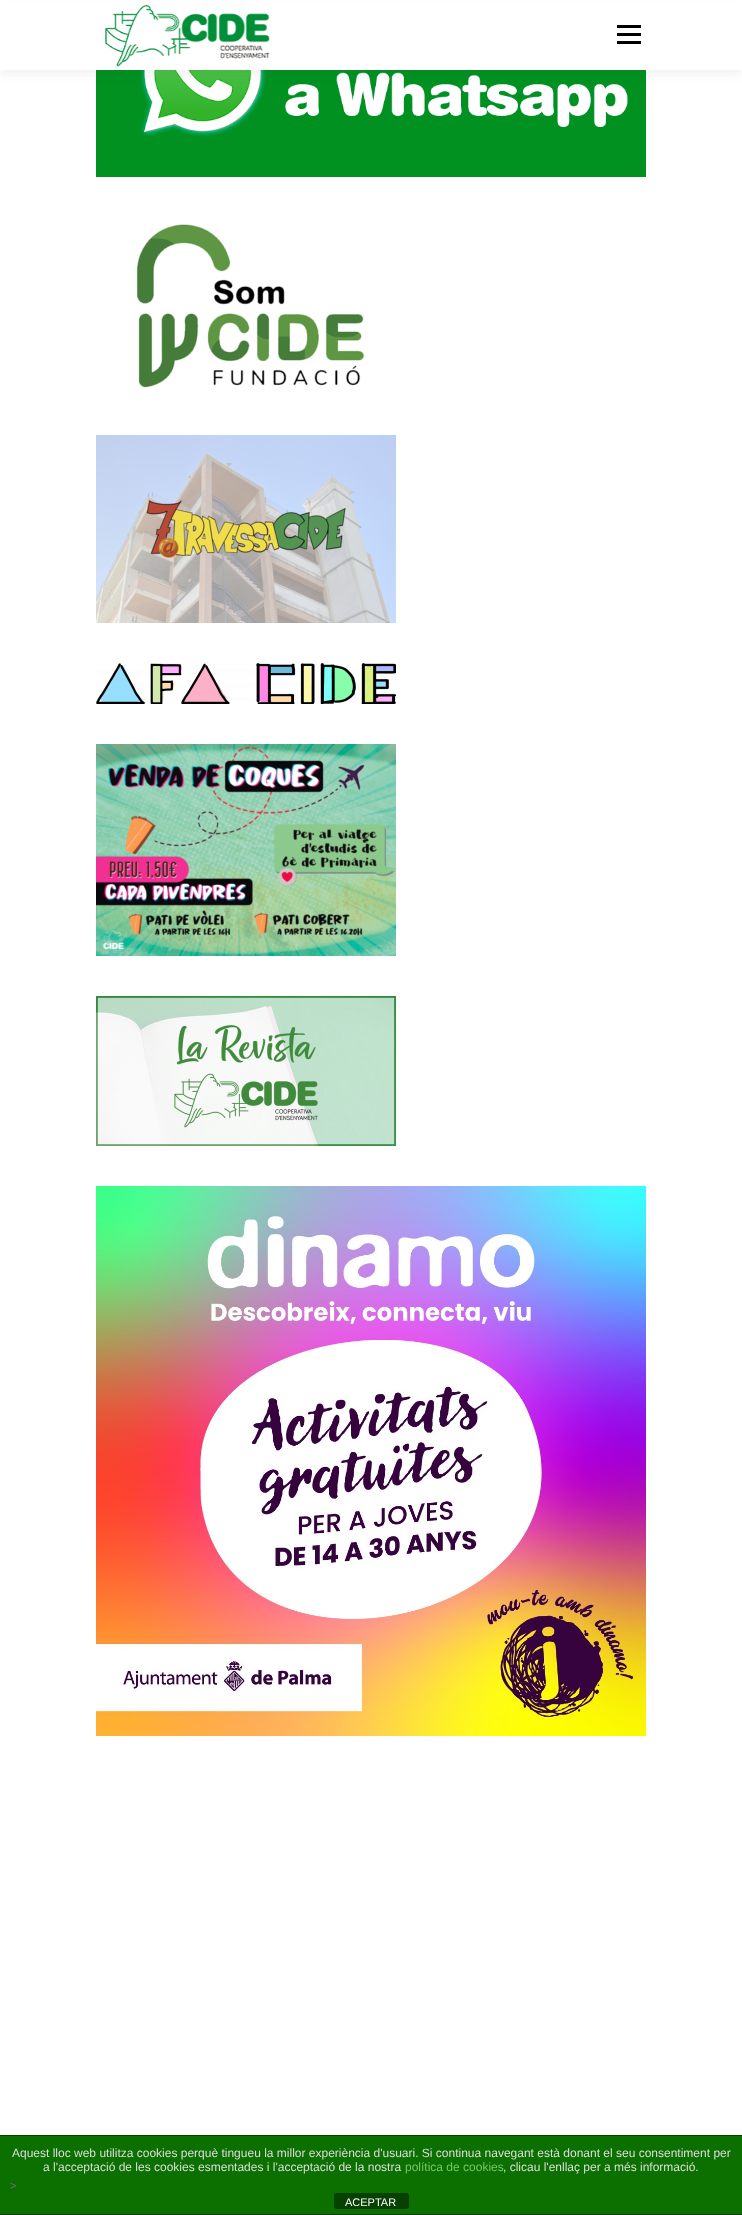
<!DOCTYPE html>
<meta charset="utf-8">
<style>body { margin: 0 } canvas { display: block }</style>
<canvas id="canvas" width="742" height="2215"></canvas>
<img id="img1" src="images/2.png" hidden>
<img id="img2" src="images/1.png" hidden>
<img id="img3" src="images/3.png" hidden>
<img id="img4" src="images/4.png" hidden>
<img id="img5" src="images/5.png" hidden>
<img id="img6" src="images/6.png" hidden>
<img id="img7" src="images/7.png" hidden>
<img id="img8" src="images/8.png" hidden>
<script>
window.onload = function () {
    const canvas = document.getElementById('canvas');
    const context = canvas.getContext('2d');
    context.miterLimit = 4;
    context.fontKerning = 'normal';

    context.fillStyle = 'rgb(255, 255, 255)';
    context.fillRect(0, 0, 742, 2215);
    context.drawImage(document.getElementById('img1'), 96, 70, 550, 107);
    context.fillStyle = 'rgba(50, 50, 50, 0.06)';
    context.filter = 'blur(5px)';
    context.beginPath();
    context.rect(0, 5, 742, 70);
    context.fill();
    context.filter = 'none';
    context.fillStyle = 'rgb(255, 255, 255)';
    context.fillRect(0, 1, 742, 69);
    context.drawImage(document.getElementById('img2'), 105, 5, 165, 62);
    context.fillStyle = 'rgb(0, 0, 0)';
    context.fillRect(617, 33, 24, 3);
    context.fillRect(617, 25, 24, 3);
    context.fillRect(617, 41, 24, 3);
    context.drawImage(document.getElementById('img3'), 136, 224, 229, 164);
    context.drawImage(document.getElementById('img4'), 96, 435, 300, 188);
    context.drawImage(document.getElementById('img5'), 96, 663, 300, 41);
    context.drawImage(document.getElementById('img6'), 96, 744, 300, 212);
    context.drawImage(document.getElementById('img7'), 96, 996, 300, 150);
    context.drawImage(document.getElementById('img8'), 96, 1186, 550, 550);
    context.fillStyle = 'rgb(11, 112, 0)';
    context.fillRect(0, 2136, 742, 78);
    context.fillStyle = 'rgb(6, 64, 0)';
    context.fillRect(0, 2135, 742, 1);
    context.fillRect(0, 2214, 742, 1);
    context.fillStyle = 'rgb(7, 64, 0)';
    context.beginPath();
    context.roundRect(334, 2193, 75, 16, 3);
    context.fill();
    context.font = '12px Liberation Sans';
    context.fillStyle = 'rgb(221, 221, 221)';
    context.fillText('Aquest lloc web utilitza cookies perquè tingueu la millor experiència d\'usuari. Si continua navegant està donant el seu consentiment per', 12, 2157);
    context.fillText('a l\'acceptació de les cookies esmentades i l\'acceptació de la nostra', 43, 2171);
    context.fillStyle = 'rgb(117, 199, 108)';
    context.fillText('política de cookies', 405, 2171);
    context.fillStyle = 'rgb(221, 221, 221)';
    context.fillText(', clicau l\'enllaç per a més informació.', 503, 2171);
    context.font = '12px Open Sans';
    context.fillStyle = 'rgb(119, 119, 119)';
    context.fillText('>', 10, 2190);
    context.font = '11px Liberation Sans';
    context.fillStyle = 'rgb(255, 255, 255)';
    context.fillText('ACEPTAR', 345, 2206);
};
</script>
